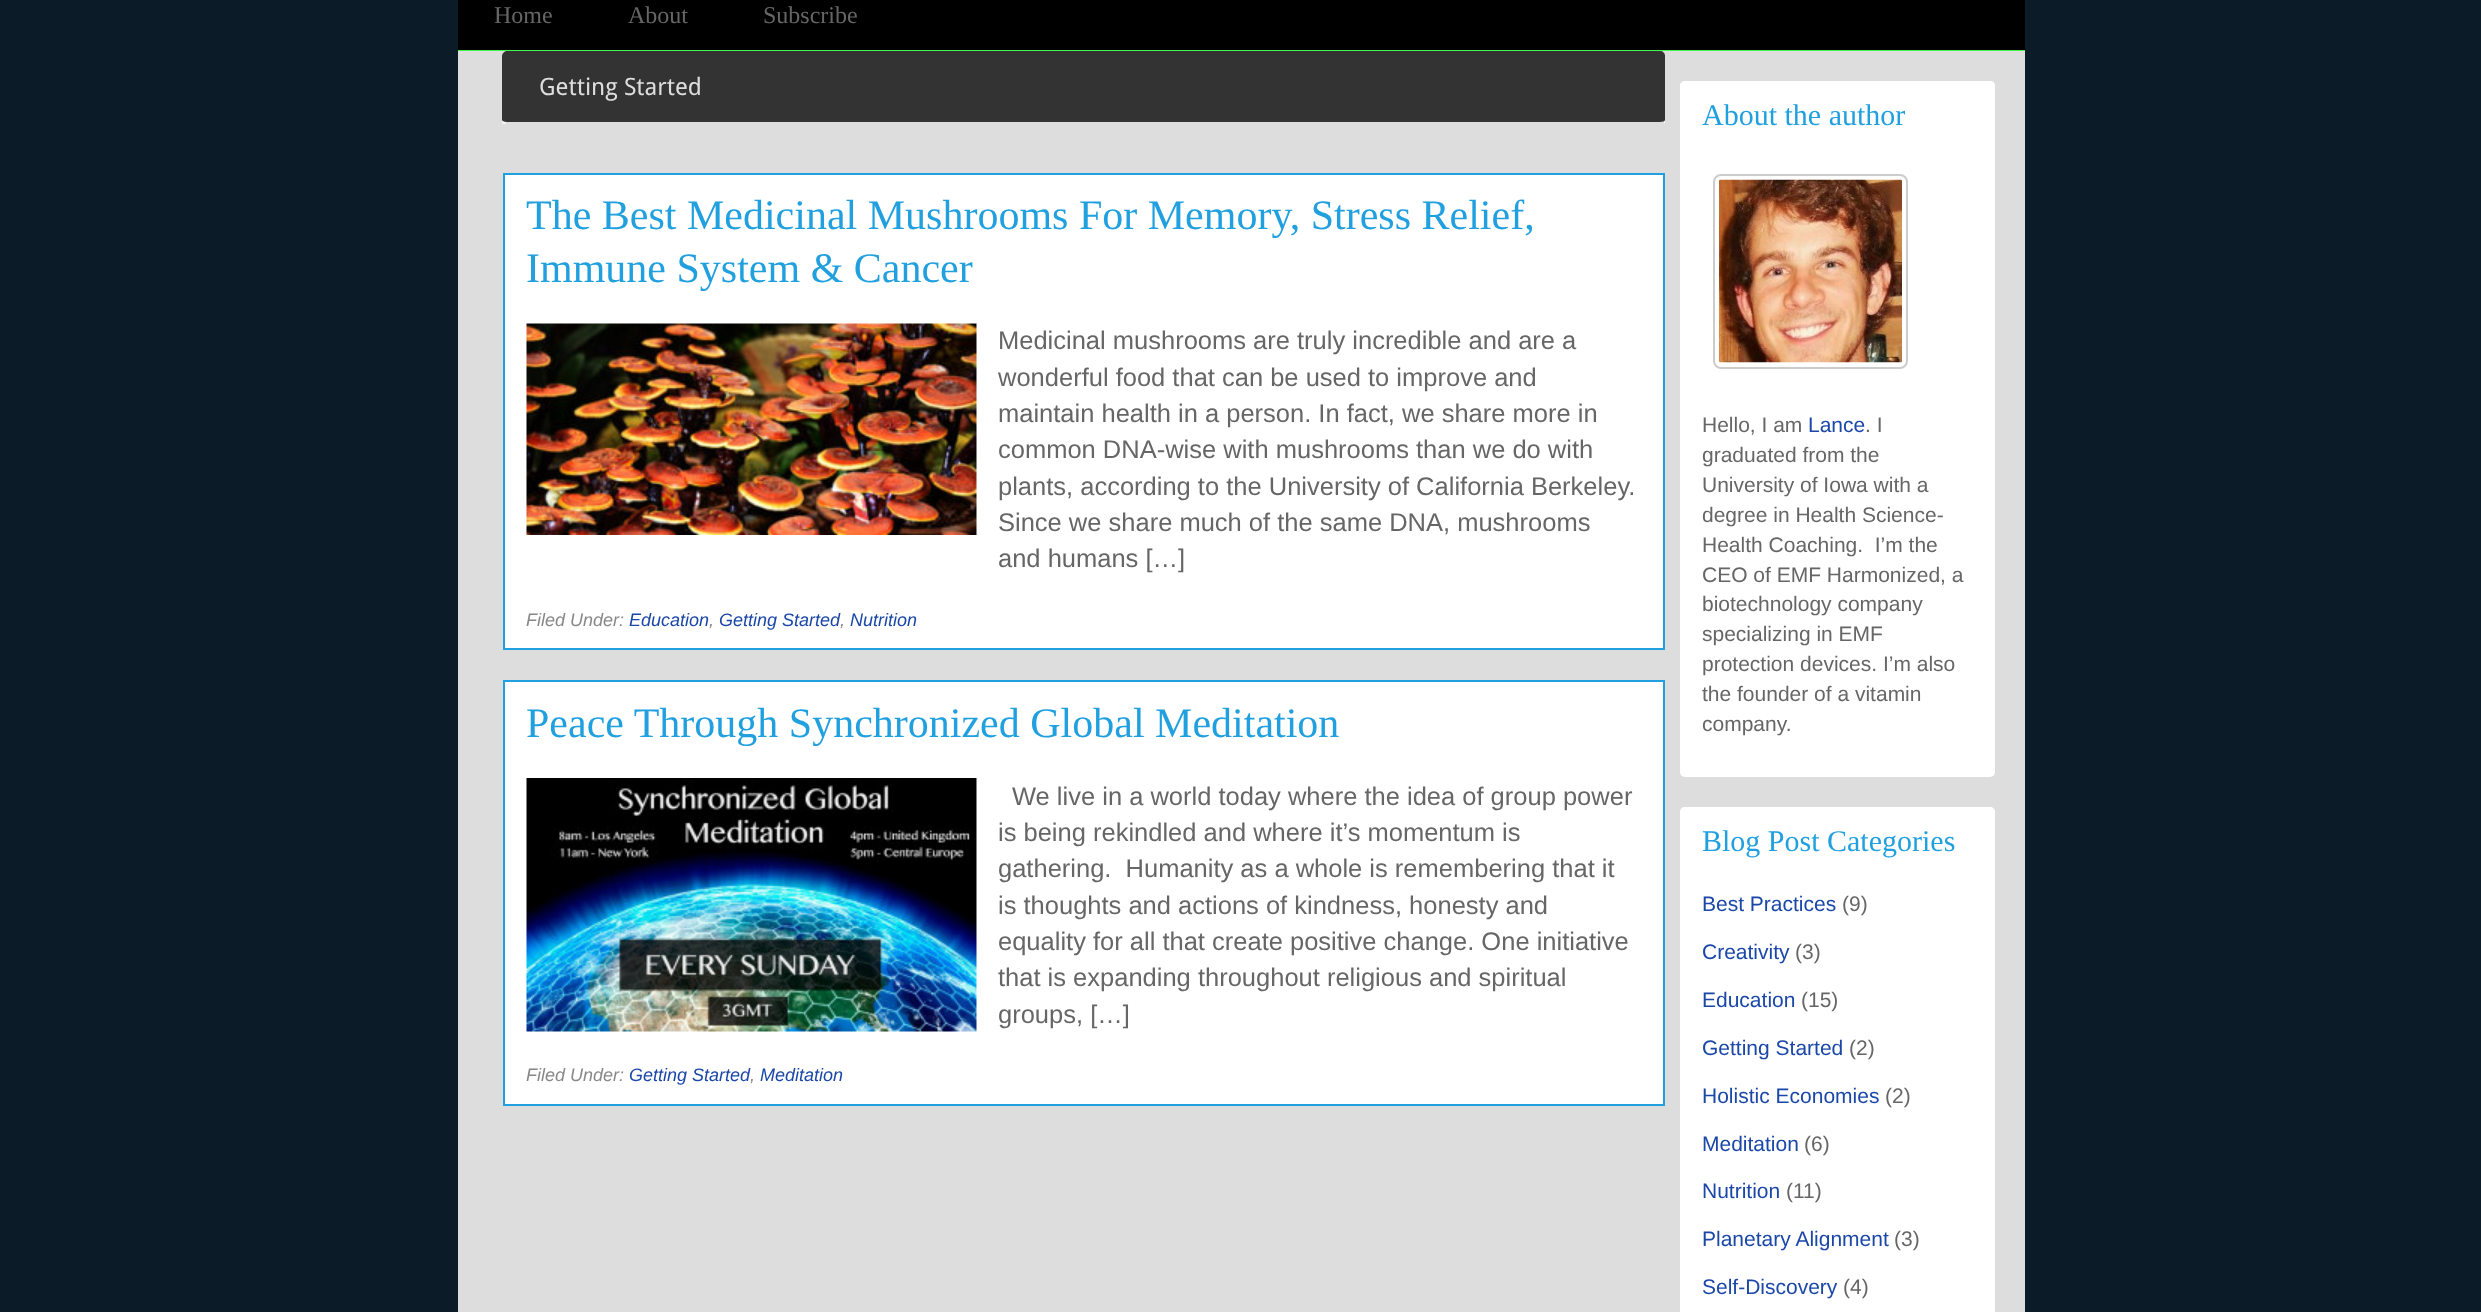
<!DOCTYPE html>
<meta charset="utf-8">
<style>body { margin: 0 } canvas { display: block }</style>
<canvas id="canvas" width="2481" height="1312"></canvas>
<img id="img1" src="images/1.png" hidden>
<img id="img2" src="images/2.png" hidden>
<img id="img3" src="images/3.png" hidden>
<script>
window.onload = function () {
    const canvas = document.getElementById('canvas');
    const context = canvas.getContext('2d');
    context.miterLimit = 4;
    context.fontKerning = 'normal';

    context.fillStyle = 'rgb(11, 28, 40)';
    context.fillRect(0, 0, 2481, 1312);
    context.fillStyle = 'rgb(0, 0, 0)';
    context.fillRect(458, 0, 1567, 50);
    context.fillStyle = 'rgb(64, 252, 68)';
    context.fillRect(458, 50, 1567, 1);
    context.fillStyle = 'rgb(221, 221, 221)';
    context.fillRect(458, 51, 1567, 1261);
    context.fillStyle = 'rgb(245, 245, 245)';
    context.beginPath();
    context.moveTo(507, 51);
    context.lineTo(1660, 51);
    context.bezierCurveTo(1663, 51, 1665, 53, 1665, 56);
    context.lineTo(1665, 123);
    context.bezierCurveTo(1665, 124, 1663, 124, 1660, 124);
    context.lineTo(507, 124);
    context.bezierCurveTo(505, 124, 502, 124, 502, 123);
    context.lineTo(502, 56);
    context.bezierCurveTo(502, 53, 505, 51, 507, 51);
    context.closePath();
    context.fill();
    context.fillStyle = 'rgb(51, 51, 51)';
    context.beginPath();
    context.moveTo(507, 51);
    context.lineTo(1660, 51);
    context.bezierCurveTo(1663, 51, 1665, 53, 1665, 56);
    context.lineTo(1665, 120);
    context.bezierCurveTo(1665, 121, 1663, 122, 1660, 122);
    context.lineTo(507, 122);
    context.bezierCurveTo(505, 122, 502, 121, 502, 120);
    context.lineTo(502, 56);
    context.bezierCurveTo(502, 53, 505, 51, 507, 51);
    context.closePath();
    context.fill();
    context.fillStyle = 'rgb(221, 221, 221)';
    context.fillRect(506, 122, 1158, 2);
    context.fillStyle = 'rgb(255, 255, 255)';
    context.beginPath();
    context.rect(504, 174, 1160, 475);
    context.fill();
    context.strokeStyle = 'rgb(33, 160, 223)';
    context.lineWidth = 2;
    context.stroke();
    context.drawImage(document.getElementById('img1'), 526, 323, 451, 212);
    context.beginPath();
    context.rect(504, 681, 1160, 424);
    context.fill();
    context.stroke();
    context.drawImage(document.getElementById('img2'), 526, 778, 451, 254);
    context.beginPath();
    context.roundRect(1680, 81, 315, 696, 5);
    context.fill();
    context.beginPath();
    context.roundRect(1680, 81, 315, 68, 5);
    context.fill();
    context.beginPath();
    context.roundRect(1714, 175, 193, 193, 7);
    context.strokeStyle = 'rgb(204, 204, 204)';
    context.stroke();
    context.drawImage(document.getElementById('img3'), 1719, 179, 183, 184);
    context.beginPath();
    context.roundRect(1680, 807, 315, 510, 5);
    context.fill();
    context.beginPath();
    context.roundRect(1680, 807, 315, 68, 5);
    context.fill();
    context.font = '24px Liberation Serif';
    context.fillStyle = 'rgb(102, 102, 102)';
    context.fillText('Home', 494, 23);
    context.fillText('About', 628, 23);
    context.fillText('Subscribe', 763, 23);
    context.font = '24px Droid Sans';
    context.fillStyle = 'rgb(221, 221, 221)';
    context.fillText('Getting Started', 539, 95);
    context.font = '42px Liberation Serif';
    context.fillStyle = 'rgb(33, 160, 223)';
    context.fillText('The Best Medicinal Mushrooms For Memory, Stress Relief,', 526, 229);
    context.fillText('Immune System & Cancer', 526, 282);
    context.font = '25.5px Liberation Sans';
    context.fillStyle = 'rgb(102, 102, 102)';
    context.fillText('Medicinal mushrooms are truly incredible and are a', 998, 349);
    context.fillText('wonderful food that can be used to improve and', 998, 386);
    context.fillText('maintain health in a person. In fact, we share more in', 998, 422);
    context.fillText('common DNA-wise with mushrooms than we do with', 998, 458);
    context.fillText('plants, according to the University of California Berkeley.', 998, 495);
    context.fillText('Since we share much of the same DNA, mushrooms', 998, 531);
    context.fillText('and humans […]', 998, 567);
    context.font = 'italic 18px Liberation Sans';
    context.fillStyle = 'rgb(136, 136, 136)';
    context.fillText('Filed Under:', 526, 626);
    context.fillStyle = 'rgb(26, 71, 168)';
    context.fillText('Education', 629, 626);
    context.fillStyle = 'rgb(136, 136, 136)';
    context.fillText(',', 709, 626);
    context.fillStyle = 'rgb(26, 71, 168)';
    context.fillText('Getting Started', 719, 626);
    context.fillStyle = 'rgb(136, 136, 136)';
    context.fillText(',', 840, 626);
    context.fillStyle = 'rgb(26, 71, 168)';
    context.fillText('Nutrition', 850, 626);
    context.font = '42px Liberation Serif';
    context.fillStyle = 'rgb(33, 160, 223)';
    context.fillText('Peace Through Synchronized Global Meditation', 526, 737);
    context.font = '25.5px Liberation Sans';
    context.fillStyle = 'rgb(102, 102, 102)';
    context.fillText('We live in a world today where the idea of group power', 1012, 805);
    context.fillText('is being rekindled and where it’s momentum is', 998, 841);
    context.fillText('gathering.  Humanity as a whole is remembering that it', 998, 877);
    context.fillText('is thoughts and actions of kindness, honesty and', 998, 914);
    context.fillText('equality for all that create positive change. One initiative', 998, 950);
    context.fillText('that is expanding throughout religious and spiritual', 998, 986);
    context.fillText('groups, […]', 998, 1023);
    context.font = 'italic 18px Liberation Sans';
    context.fillStyle = 'rgb(136, 136, 136)';
    context.fillText('Filed Under:', 526, 1081);
    context.fillStyle = 'rgb(26, 71, 168)';
    context.fillText('Getting Started', 629, 1081);
    context.fillStyle = 'rgb(136, 136, 136)';
    context.fillText(',', 750, 1081);
    context.fillStyle = 'rgb(26, 71, 168)';
    context.fillText('Meditation', 760, 1081);
    context.font = '30px Liberation Serif';
    context.fillStyle = 'rgb(33, 160, 223)';
    context.fillText('About the author', 1702, 125);
    context.font = '21px Liberation Sans';
    context.fillStyle = 'rgb(102, 102, 102)';
    context.fillText('Hello, I am', 1702, 432);
    context.fillStyle = 'rgb(26, 71, 168)';
    context.fillText('Lance', 1808, 432);
    context.fillStyle = 'rgb(102, 102, 102)';
    context.fillText('. I', 1865, 432);
    context.fillText('graduated from the', 1702, 462);
    context.fillText('University of Iowa with a', 1702, 492);
    context.fillText('degree in Health Science-', 1702, 522);
    context.fillText('Health Coaching.  I’m the', 1702, 552);
    context.fillText('CEO of EMF Harmonized, a', 1702, 582);
    context.fillText('biotechnology company', 1702, 611);
    context.fillText('specializing in EMF', 1702, 641);
    context.fillText('protection devices. I’m also', 1702, 671);
    context.fillText('the founder of a vitamin', 1702, 701);
    context.fillText('company.', 1702, 731);
    context.font = '30px Liberation Serif';
    context.fillStyle = 'rgb(33, 160, 223)';
    context.fillText('Blog Post Categories', 1702, 851);
    context.font = '21px Liberation Sans';
    context.fillStyle = 'rgb(26, 71, 168)';
    context.fillText('Best Practices', 1702, 911);
    context.fillStyle = 'rgb(102, 102, 102)';
    context.fillText('(9)', 1842, 911);
    context.fillStyle = 'rgb(26, 71, 168)';
    context.fillText('Creativity', 1702, 959);
    context.fillStyle = 'rgb(102, 102, 102)';
    context.fillText('(3)', 1795, 959);
    context.fillStyle = 'rgb(26, 71, 168)';
    context.fillText('Education', 1702, 1007);
    context.fillStyle = 'rgb(102, 102, 102)';
    context.fillText('(15)', 1801, 1007);
    context.fillStyle = 'rgb(26, 71, 168)';
    context.fillText('Getting Started', 1702, 1055);
    context.fillStyle = 'rgb(102, 102, 102)';
    context.fillText('(2)', 1849, 1055);
    context.fillStyle = 'rgb(26, 71, 168)';
    context.fillText('Holistic Economies', 1702, 1103);
    context.fillStyle = 'rgb(102, 102, 102)';
    context.fillText('(2)', 1885, 1103);
    context.fillStyle = 'rgb(26, 71, 168)';
    context.fillText('Meditation', 1702, 1151);
    context.fillStyle = 'rgb(102, 102, 102)';
    context.fillText('(6)', 1804, 1151);
    context.fillStyle = 'rgb(26, 71, 168)';
    context.fillText('Nutrition', 1702, 1198);
    context.fillStyle = 'rgb(102, 102, 102)';
    context.fillText('(11)', 1786, 1198);
    context.fillStyle = 'rgb(26, 71, 168)';
    context.fillText('Planetary Alignment', 1702, 1246);
    context.fillStyle = 'rgb(102, 102, 102)';
    context.fillText('(3)', 1894, 1246);
    context.fillStyle = 'rgb(26, 71, 168)';
    context.fillText('Self-Discovery', 1702, 1294);
    context.fillStyle = 'rgb(102, 102, 102)';
    context.fillText('(4)', 1843, 1294);
};
</script>
